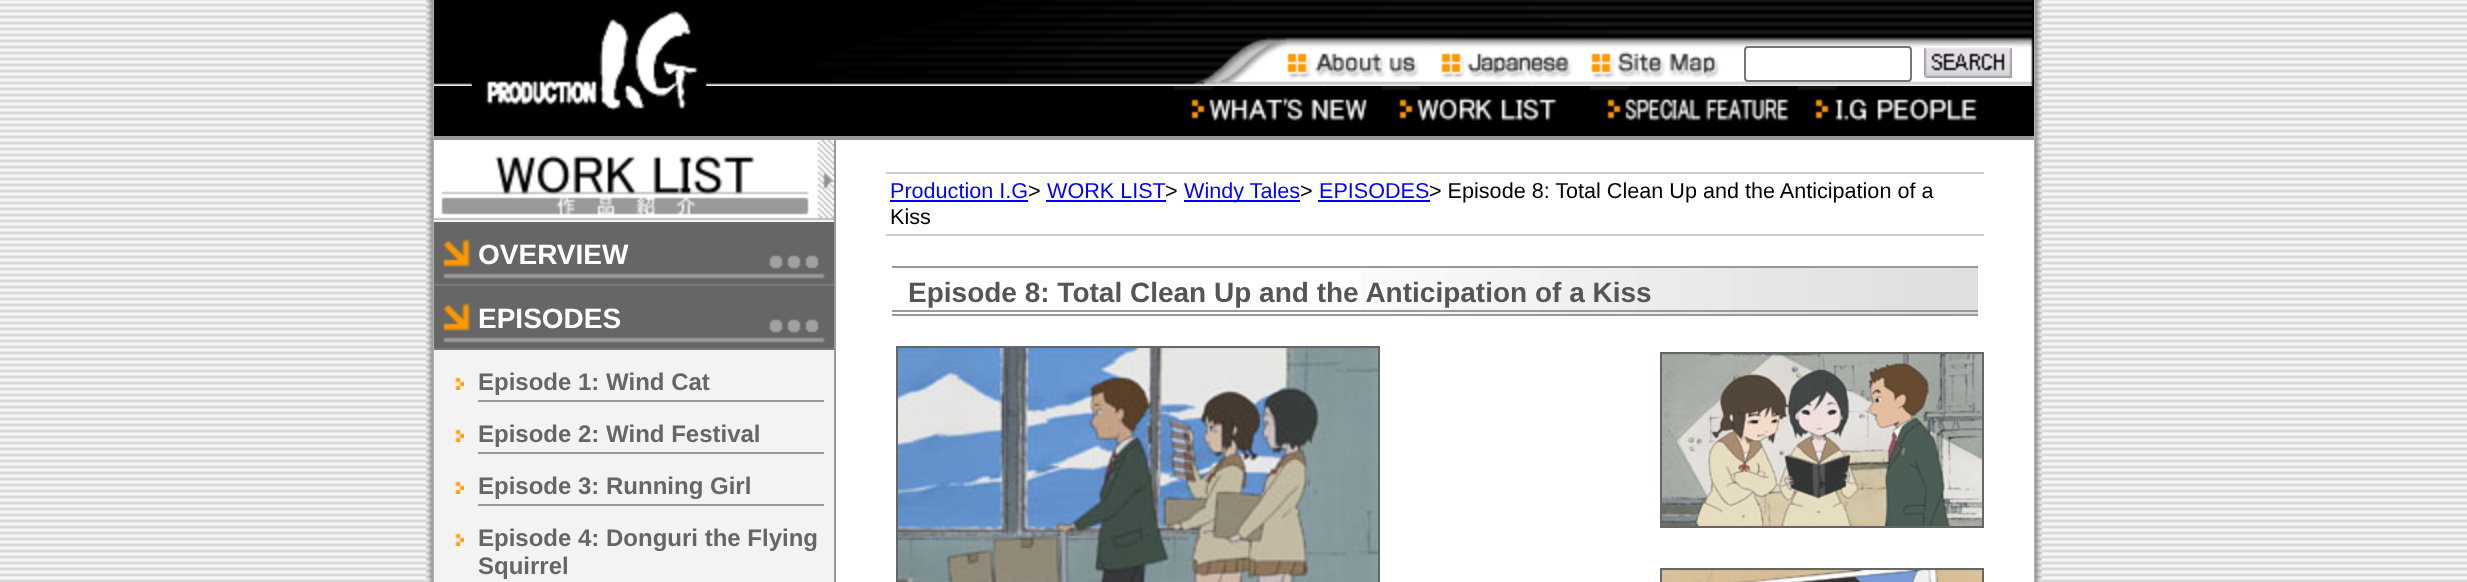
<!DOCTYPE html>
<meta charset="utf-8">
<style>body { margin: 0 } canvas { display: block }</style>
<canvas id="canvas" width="2467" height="582"></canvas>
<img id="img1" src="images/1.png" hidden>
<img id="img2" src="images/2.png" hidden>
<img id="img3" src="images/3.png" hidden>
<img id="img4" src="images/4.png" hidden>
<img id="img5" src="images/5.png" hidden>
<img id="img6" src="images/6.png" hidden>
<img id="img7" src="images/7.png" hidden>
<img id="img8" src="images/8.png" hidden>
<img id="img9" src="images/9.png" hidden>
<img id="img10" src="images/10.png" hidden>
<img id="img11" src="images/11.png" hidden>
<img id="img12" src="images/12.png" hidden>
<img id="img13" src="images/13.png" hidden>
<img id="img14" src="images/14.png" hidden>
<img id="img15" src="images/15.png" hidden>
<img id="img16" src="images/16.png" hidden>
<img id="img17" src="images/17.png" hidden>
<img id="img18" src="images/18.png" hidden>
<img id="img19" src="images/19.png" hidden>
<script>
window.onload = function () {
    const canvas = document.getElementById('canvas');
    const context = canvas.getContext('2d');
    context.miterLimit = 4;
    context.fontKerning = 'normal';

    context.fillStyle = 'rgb(236, 236, 236)';
    context.fillRect(0, 0, 2467, 582);
    context.drawImage(document.getElementById('img1'), 0, 1, 2467, 581);
    context.drawImage(document.getElementById('img2'), 426, 0, 1616, 582);
    context.fillStyle = 'rgb(0, 0, 0)';
    context.fillRect(434, 0, 1600, 136);
    context.drawImage(document.getElementById('img3'), 434, 0, 1599, 86);
    context.fillStyle = 'rgb(153, 153, 153)';
    context.fillRect(434, 136, 1600, 4);
    context.drawImage(document.getElementById('img4'), 472, 11, 234, 99);
    context.drawImage(document.getElementById('img5'), 1286, 46, 140, 33);
    context.drawImage(document.getElementById('img6'), 1434, 46, 142, 34);
    context.drawImage(document.getElementById('img7'), 1584, 46, 140, 34);
    context.fillStyle = 'rgb(255, 255, 255)';
    context.beginPath();
    context.roundRect(1745, 47, 166, 34, 3);
    context.fill();
    context.strokeStyle = 'rgb(118, 118, 118)';
    context.lineWidth = 2;
    context.stroke();
    context.drawImage(document.getElementById('img8'), 1924, 46, 88, 32);
    context.drawImage(document.getElementById('img9'), 1174, 86, 194, 35);
    context.drawImage(document.getElementById('img10'), 1382, 86, 175, 35);
    context.drawImage(document.getElementById('img11'), 1590, 86, 199, 35);
    context.drawImage(document.getElementById('img12'), 1798, 86, 179, 35);
    context.fillStyle = 'rgb(243, 243, 243)';
    context.fillRect(434, 220, 400, 362);
    context.drawImage(document.getElementById('img13'), 434, 140, 400, 80);
    context.fillStyle = 'rgb(255, 255, 255)';
    context.fillRect(434, 220, 2, 2);
    context.fillStyle = 'rgb(102, 102, 102)';
    context.fillRect(434, 222, 400, 17);
    context.drawImage(document.getElementById('img14'), 434, 239, 400, 47);
    context.fillRect(434, 286, 400, 17);
    context.drawImage(document.getElementById('img14'), 434, 303, 400, 47);
    context.fillStyle = 'rgb(153, 153, 153)';
    context.fillRect(478, 400, 346, 2);
    context.drawImage(document.getElementById('img15'), 455, 377, 9, 13);
    context.fillRect(478, 452, 346, 2);
    context.drawImage(document.getElementById('img15'), 455, 429, 9, 13);
    context.fillRect(478, 504, 346, 2);
    context.drawImage(document.getElementById('img15'), 455, 481, 9, 13);
    context.drawImage(document.getElementById('img15'), 455, 533, 9, 13);
    context.fillRect(834, 140, 2, 442);
    context.fillStyle = 'rgb(255, 255, 255)';
    context.fillRect(2033, 140, 1, 442);
    context.fillStyle = 'rgb(204, 204, 204)';
    context.fillRect(886, 172, 1098, 2);
    context.fillRect(886, 234, 1098, 2);
    context.fillStyle = 'rgb(0, 0, 255)';
    context.fillRect(890, 200, 138, 2);
    context.fillRect(1046, 200, 120, 2);
    context.fillRect(1184, 200, 116, 2);
    context.fillRect(1318, 200, 112, 2);
    context.drawImage(document.getElementById('img16'), 1361, 268, 617, 46);
    context.fillStyle = 'rgb(153, 153, 153)';
    context.fillRect(892, 266, 1086, 2);
    context.fillRect(892, 310, 1086, 2);
    context.fillRect(892, 314, 1086, 2);
    context.strokeStyle = 'rgb(102, 102, 102)';
    context.strokeRect(897, 347, 482, 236);
    context.drawImage(document.getElementById('img17'), 898, 348, 480, 234);
    context.strokeRect(1661, 353, 322, 174);
    context.drawImage(document.getElementById('img18'), 1662, 354, 320, 172);
    context.strokeRect(1661, 569, 322, 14);
    context.drawImage(document.getElementById('img19'), 1662, 570, 320, 12);
    context.font = 'bold 28px Liberation Sans';
    context.fillStyle = 'rgb(255, 255, 255)';
    context.fillText('OVERVIEW', 478, 264);
    context.fillText('EPISODES', 478, 328);
    context.font = 'bold 24px Liberation Sans';
    context.fillStyle = 'rgb(102, 102, 102)';
    context.fillText('Episode 1: Wind Cat', 478, 390);
    context.fillText('Episode 2: Wind Festival', 478, 442);
    context.fillText('Episode 3: Running Girl', 478, 494);
    context.fillText('Episode 4: Donguri the Flying', 478, 546);
    context.fillText('Squirrel', 478, 574);
    context.font = '21.6px Liberation Sans';
    context.fillStyle = 'rgb(0, 0, 255)';
    context.fillText('Production I.G', 890, 198);
    context.fillStyle = 'rgb(0, 0, 0)';
    context.fillText('>', 1028, 198);
    context.fillStyle = 'rgb(0, 0, 255)';
    context.fillText('WORK LIST', 1047, 198);
    context.fillStyle = 'rgb(0, 0, 0)';
    context.fillText('>', 1165, 198);
    context.fillStyle = 'rgb(0, 0, 255)';
    context.fillText('Windy Tales', 1184, 198);
    context.fillStyle = 'rgb(0, 0, 0)';
    context.fillText('>', 1300, 198);
    context.fillStyle = 'rgb(0, 0, 255)';
    context.fillText('EPISODES', 1319, 198);
    context.fillStyle = 'rgb(0, 0, 0)';
    context.fillText('> Episode 8: Total Clean Up and the Anticipation of a', 1429, 198);
    context.fillText('Kiss', 890, 224);
    context.font = 'bold 28px Liberation Sans';
    context.fillStyle = 'rgb(85, 85, 85)';
    context.fillText('Episode 8: Total Clean Up and the Anticipation of a Kiss', 908, 302);
};
</script>
